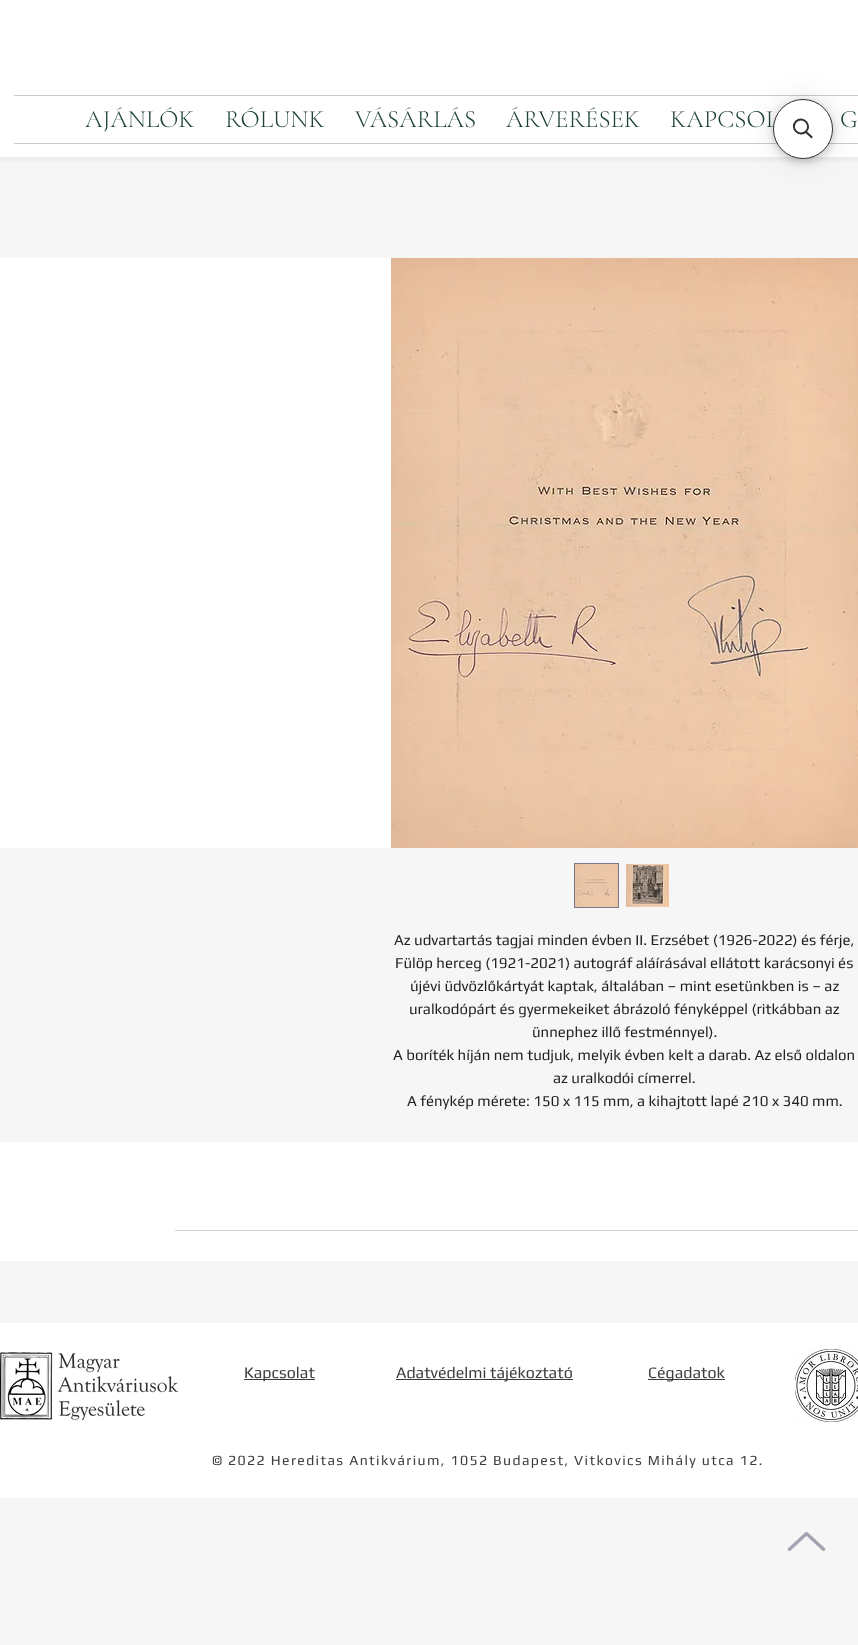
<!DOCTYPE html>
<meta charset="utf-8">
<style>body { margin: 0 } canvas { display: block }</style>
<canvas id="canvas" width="858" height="1645"></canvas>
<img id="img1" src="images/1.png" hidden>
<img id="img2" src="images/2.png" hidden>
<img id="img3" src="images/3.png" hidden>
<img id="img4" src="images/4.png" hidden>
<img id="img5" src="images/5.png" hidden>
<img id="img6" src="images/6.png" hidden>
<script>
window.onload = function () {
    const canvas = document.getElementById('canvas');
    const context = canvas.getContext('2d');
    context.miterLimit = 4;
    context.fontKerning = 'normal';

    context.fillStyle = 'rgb(246, 246, 246)';
    context.fillRect(0, 0, 858, 1645);
    context.fillStyle = 'rgba(0, 0, 0, 0.05)';
    context.filter = 'blur(2.5px)';
    context.beginPath();
    context.rect(-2, -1, 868, 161);
    context.fill();
    context.filter = 'none';
    context.fillStyle = 'rgb(255, 255, 255)';
    context.fillRect(0, 0, 858, 157);
    context.fillStyle = 'rgb(202, 202, 202)';
    context.fillRect(14, 95, 844, 1);
    context.fillRect(14, 143, 844, 1);
    context.fillStyle = 'rgba(0, 0, 0, 0.05)';
    context.filter = 'blur(4px)';
    context.beginPath();
    context.roundRect(773, 103, 60, 60, 30);
    context.fill();
    context.filter = 'none';
    context.fillStyle = 'rgba(0, 0, 0, 0.15)';
    context.filter = 'blur(4px)';
    context.beginPath();
    context.roundRect(773, 101, 60, 60, 30);
    context.fill();
    context.filter = 'none';
    context.fillStyle = 'rgba(0, 0, 0, 0.1)';
    context.filter = 'blur(15px)';
    context.beginPath();
    context.roundRect(773, 99, 60, 60, 30);
    context.fill();
    context.filter = 'none';
    context.fillStyle = 'rgb(255, 255, 255)';
    context.fillRect(0, 258, 391, 590);
    context.drawImage(document.getElementById('img1'), 391, 258, 467, 590);
    context.strokeStyle = 'rgb(122, 121, 138)';
    context.strokeRect(574.5, 863.5, 44, 44);
    context.drawImage(document.getElementById('img2'), 575, 864, 43, 43);
    context.drawImage(document.getElementById('img3'), 626, 864, 43, 43);
    context.fillRect(0, 1142, 858, 119);
    context.fillStyle = 'rgb(210, 210, 210)';
    context.fillRect(175, 1230, 683, 1);
    context.fillStyle = 'rgb(255, 255, 255)';
    context.fillRect(0, 1323, 858, 175);
    context.drawImage(document.getElementById('img4'), 0, 1352, 179, 69);
    context.fillStyle = 'rgb(61, 61, 61)';
    context.fillRect(244, 1379, 71, 1);
    context.fillRect(396, 1379, 177, 1);
    context.fillRect(648, 1379, 77, 1);
    context.drawImage(document.getElementById('img5'), 795, 1349, 63, 73);
    context.drawImage(document.getElementById('img6'), 787, 1532, 39, 19);
    context.font = '300 25px Cormorant Garamond';
    context.fillStyle = 'rgb(29, 65, 48)';
    context.fillText('AJÁNLÓK', 85, 127);
    context.fillText('RÓLUNK', 225, 127);
    context.fillText('VÁSÁRLÁS', 355, 127);
    context.fillText('ÁRVERÉSEK', 506, 127);
    context.fillText('KAPCSOL', 670, 127);
    context.fillStyle = 'rgb(255, 255, 255)';
    context.beginPath();
    context.arc(803, 129, 29.5, 0, 2 * Math.PI);
    context.fill();
    context.strokeStyle = 'rgb(51, 51, 51)';
    context.stroke();
    context.beginPath();
    context.moveTo(796, 121.5);
    context.bezierCurveTo(802.5, 115, 812.5, 125, 806, 131.5);
    context.bezierCurveTo(799.5, 138, 789.5, 128, 796, 121.5);
    context.closePath();
    context.lineWidth = 2;
    context.stroke();
    context.fillStyle = 'rgb(51, 51, 51)';
    context.beginPath();
    context.moveTo(805, 132.5);
    context.lineTo(806.5, 131);
    context.lineTo(812.5, 136.5);
    context.bezierCurveTo(813, 137.5, 811.5, 139, 811, 138);
    context.closePath();
    context.fill();
    context.fillStyle = 'rgb(29, 65, 48)';
    context.fillText('G', 840, 127);
    context.font = '15px Play';
    context.fillStyle = 'rgb(31, 31, 31)';
    context.fillText('Az udvartartás tagjai minden évben II. Erzsébet (1926-2022) és férje,', 394, 945);
    context.fillText('Fülöp herceg (1921-2021) autográf aláírásával ellátott karácsonyi és', 395, 968);
    context.fillText('újévi üdvözlőkártyát kaptak, általában – mint esetünkben is – az', 410, 991);
    context.fillText('uralkodópárt és gyermekeiket ábrázoló fényképpel (ritkábban az', 409, 1014);
    context.fillText('ünnephez illő festménnyel).', 532, 1037);
    context.fillText('A boríték híján nem tudjuk, melyik évben kelt a darab. Az első oldalon', 393, 1060);
    context.fillText('az uralkodói címerrel.', 553, 1083);
    context.fillText('A fénykép mérete: 150 x 115 mm, a kihajtott lapé 210 x 340 mm.', 407, 1106);
    context.font = '16px Play';
    context.fillStyle = 'rgb(61, 61, 61)';
    context.fillText('Kapcsolat', 244, 1378);
    context.fillText('Adatvédelmi tájékoztató', 396, 1378);
    context.fillText('Cégadatok', 648, 1378);
    context.letterSpacing = '1.4px';
    context.font = '14px Play';
    context.fillText('© 2022 Hereditas Antikvárium, 1052 Budapest, Vitkovics Mihály utca 12.', 212, 1465);
};
</script>
